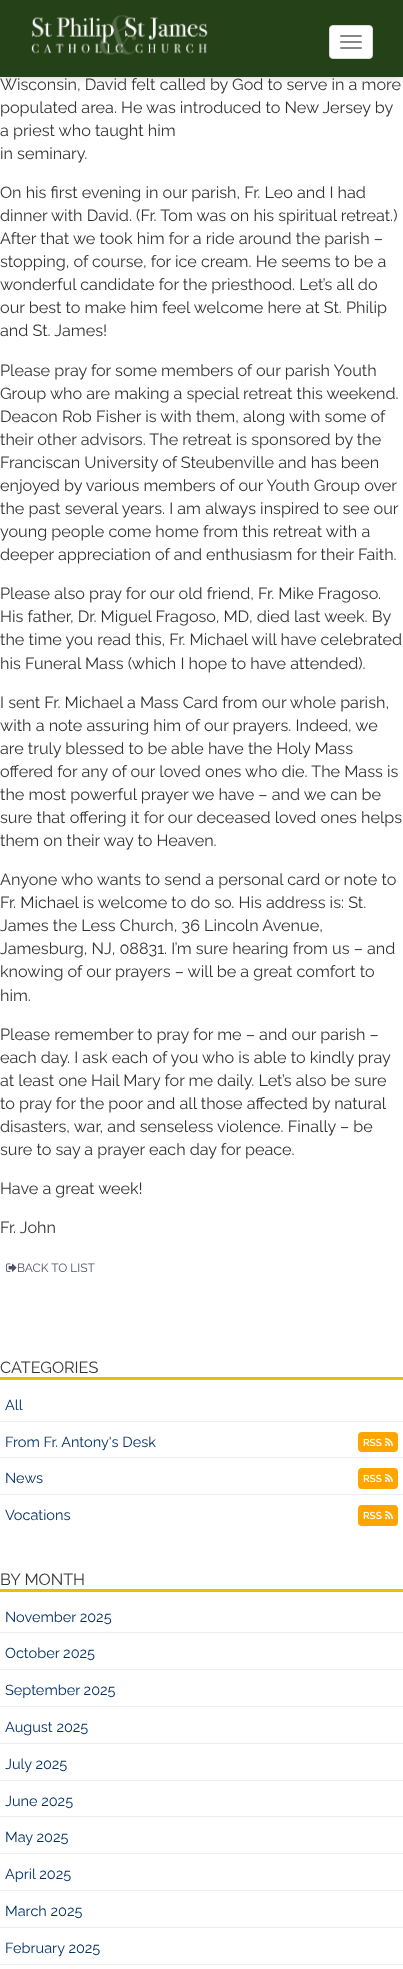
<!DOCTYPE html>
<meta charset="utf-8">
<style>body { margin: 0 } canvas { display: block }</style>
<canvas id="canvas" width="403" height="1969"></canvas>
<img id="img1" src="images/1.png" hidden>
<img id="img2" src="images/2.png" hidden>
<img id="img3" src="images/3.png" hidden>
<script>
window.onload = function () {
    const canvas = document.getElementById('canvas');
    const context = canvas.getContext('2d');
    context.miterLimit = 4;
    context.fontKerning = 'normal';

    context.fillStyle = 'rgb(255, 255, 255)';
    context.fillRect(0, 0, 403, 1969);
    context.fillStyle = 'rgba(0, 0, 0, 0.2)';
    context.filter = 'blur(5px)';
    context.beginPath();
    context.rect(0, 0, 403, 77);
    context.fill();
    context.filter = 'none';
    context.fillStyle = 'rgb(37, 65, 23)';
    context.fillRect(0, 0, 403, 77);
    context.drawImage(document.getElementById('img1'), 31, 15, 177, 40);
    context.fillStyle = 'rgb(255, 255, 255)';
    context.beginPath();
    context.roundRect(329.5, 25.5, 43, 33, 3.5);
    context.fill();
    context.strokeStyle = 'rgb(221, 221, 221)';
    context.stroke();
    context.fillStyle = 'rgb(136, 136, 136)';
    context.beginPath();
    context.roundRect(340, 35, 22, 2, 1);
    context.fill();
    context.beginPath();
    context.roundRect(340, 41, 22, 2, 1);
    context.fill();
    context.beginPath();
    context.roundRect(340, 47, 22, 2, 1);
    context.fill();
    context.drawImage(document.getElementById('img2'), 6, 1263, 11, 9);
    context.fillStyle = 'rgb(234, 189, 10)';
    context.fillRect(0, 1377, 403, 3);
    context.fillStyle = 'rgb(238, 238, 238)';
    context.fillRect(0, 1421, 403, 1);
    context.fillRect(0, 1457, 403, 1);
    context.fillStyle = 'rgb(255, 165, 0)';
    context.beginPath();
    context.roundRect(358, 1432, 40, 20, 4);
    context.fill();
    context.drawImage(document.getElementById('img3'), 385, 1438, 8, 8);
    context.fillStyle = 'rgb(238, 238, 238)';
    context.fillRect(0, 1494, 403, 1);
    context.fillStyle = 'rgb(255, 165, 0)';
    context.beginPath();
    context.roundRect(358, 1468, 40, 21, 4);
    context.fill();
    context.drawImage(document.getElementById('img3'), 385, 1474, 8, 8);
    context.beginPath();
    context.roundRect(358, 1505, 40, 21, 4);
    context.fill();
    context.drawImage(document.getElementById('img3'), 385, 1511, 8, 8);
    context.fillStyle = 'rgb(234, 189, 10)';
    context.fillRect(0, 1589, 403, 3);
    context.fillStyle = 'rgb(238, 238, 238)';
    context.fillRect(0, 1632, 403, 1);
    context.fillRect(0, 1669, 403, 1);
    context.fillRect(0, 1706, 403, 1);
    context.fillRect(0, 1743, 403, 1);
    context.fillRect(0, 1780, 403, 1);
    context.fillRect(0, 1816, 403, 1);
    context.fillRect(0, 1853, 403, 1);
    context.fillRect(0, 1890, 403, 1);
    context.fillRect(0, 1927, 403, 1);
    context.fillRect(0, 1964, 403, 1);
    context.font = '16.2px Raleway';
    context.fillStyle = 'rgb(51, 51, 51)';
    context.fillText('Wisconsin, David felt called by God to serve in a more', 0, 90);
    context.fillText('populated area. He was introduced to New Jersey by', 0, 113);
    context.fillText('a priest who taught him', 0, 136);
    context.fillText('in seminary.', 0, 159);
    context.fillText('On his first evening in our parish, Fr. Leo and I had', 0, 198);
    context.fillText('dinner with David. (Fr. Tom was on his spiritual retreat.)', 0, 221);
    context.fillText('After that we took him for a ride around the parish –', 0, 244);
    context.fillText('stopping, of course, for ice cream. He seems to be a', 0, 267);
    context.fillText('wonderful candidate for the priesthood. Let’s all do', 0, 290);
    context.fillText('our best to make him feel welcome here at St. Philip', 0, 313);
    context.fillText('and St. James!', 0, 336);
    context.fillText('Please pray for some members of our parish Youth', 0, 376);
    context.fillText('Group who are making a special retreat this weekend.', 0, 399);
    context.fillText('Deacon Rob Fisher is with them, along with some of', 0, 422);
    context.fillText('their other advisors. The retreat is sponsored by the', 0, 445);
    context.fillText('Franciscan University of Steubenville and has been', 0, 468);
    context.fillText('enjoyed by various members of our Youth Group over', 0, 491);
    context.fillText('the past several years. I am always inspired to see our', 0, 514);
    context.fillText('young people come home from this retreat with a', 0, 537);
    context.fillText('deeper appreciation of and enthusiasm for their Faith.', 0, 560);
    context.fillText('Please also pray for our old friend, Fr. Mike Fragoso.', 0, 599);
    context.fillText('His father, Dr. Miguel Fragoso, MD, died last week. By', 0, 622);
    context.fillText('the time you read this, Fr. Michael will have celebrated', 0, 645);
    context.fillText('his Funeral Mass (which I hope to have attended).', 0, 669);
    context.fillText('I sent Fr. Michael a Mass Card from our whole parish,', 0, 708);
    context.fillText('with a note assuring him of our prayers. Indeed, we', 0, 731);
    context.fillText('are truly blessed to be able have the Holy Mass', 0, 754);
    context.fillText('offered for any of our loved ones who die. The Mass is', 0, 777);
    context.fillText('the most powerful prayer we have – and we can be', 0, 800);
    context.fillText('sure that offering it for our deceased loved ones helps', 0, 823);
    context.fillText('them on their way to Heaven.', 0, 846);
    context.fillText('Anyone who wants to send a personal card or note to', 0, 885);
    context.fillText('Fr. Michael is welcome to do so. His address is: St.', 0, 908);
    context.fillText('James the Less Church, 36 Lincoln Avenue,', 0, 931);
    context.fillText('Jamesburg, NJ, 08831. I’m sure hearing from us – and', 0, 954);
    context.fillText('knowing of our prayers – will be a great comfort to', 0, 977);
    context.fillText('him.', 0, 1001);
    context.fillText('Please remember to pray for me – and our parish –', 0, 1040);
    context.fillText('each day. I ask each of you who is able to kindly pray', 0, 1063);
    context.fillText('at least one Hail Mary for me daily. Let’s also be sure', 0, 1086);
    context.fillText('to pray for the poor and all those affected by natural', 0, 1109);
    context.fillText('disasters, war, and senseless violence. Finally – be', 0, 1132);
    context.fillText('sure to say a prayer each day for peace.', 0, 1155);
    context.fillText('Have a great week!', 0, 1194);
    context.fillText('Fr. John', 0, 1233);
    context.font = '12px Raleway';
    context.fillStyle = 'rgb(77, 80, 106)';
    context.fillText('BACK TO LIST', 17, 1272);
    context.font = '16.2px Raleway';
    context.fillStyle = 'rgb(51, 51, 51)';
    context.fillText('CATEGORIES', 0, 1373);
    context.font = '14.5px Raleway';
    context.fillStyle = 'rgb(0, 47, 101)';
    context.fillText('All', 5, 1410);
    context.fillText('From Fr. Antony\'s Desk', 5, 1447);
    context.font = '600 10px Raleway';
    context.fillStyle = 'rgb(255, 255, 255)';
    context.fillText('RSS', 363, 1446);
    context.font = '14.5px Raleway';
    context.fillStyle = 'rgb(0, 47, 101)';
    context.fillText('News', 5, 1483);
    context.font = '600 10px Raleway';
    context.fillStyle = 'rgb(255, 255, 255)';
    context.fillText('RSS', 363, 1482);
    context.font = '14.5px Raleway';
    context.fillStyle = 'rgb(0, 47, 101)';
    context.fillText('Vocations', 5, 1520);
    context.font = '600 10px Raleway';
    context.fillStyle = 'rgb(255, 255, 255)';
    context.fillText('RSS', 363, 1519);
    context.font = '16.2px Raleway';
    context.fillStyle = 'rgb(51, 51, 51)';
    context.fillText('BY MONTH', 0, 1585);
    context.font = '14.5px Raleway';
    context.fillStyle = 'rgb(0, 47, 101)';
    context.fillText('November 2025', 5, 1622);
    context.fillText('October 2025', 5, 1658);
    context.fillText('September 2025', 5, 1695);
    context.fillText('August 2025', 5, 1732);
    context.fillText('July 2025', 5, 1769);
    context.fillText('June 2025', 5, 1806);
    context.fillText('May 2025', 5, 1842);
    context.fillText('April 2025', 5, 1879);
    context.fillText('March 2025', 5, 1916);
    context.fillText('February 2025', 5, 1953);
};
</script>
